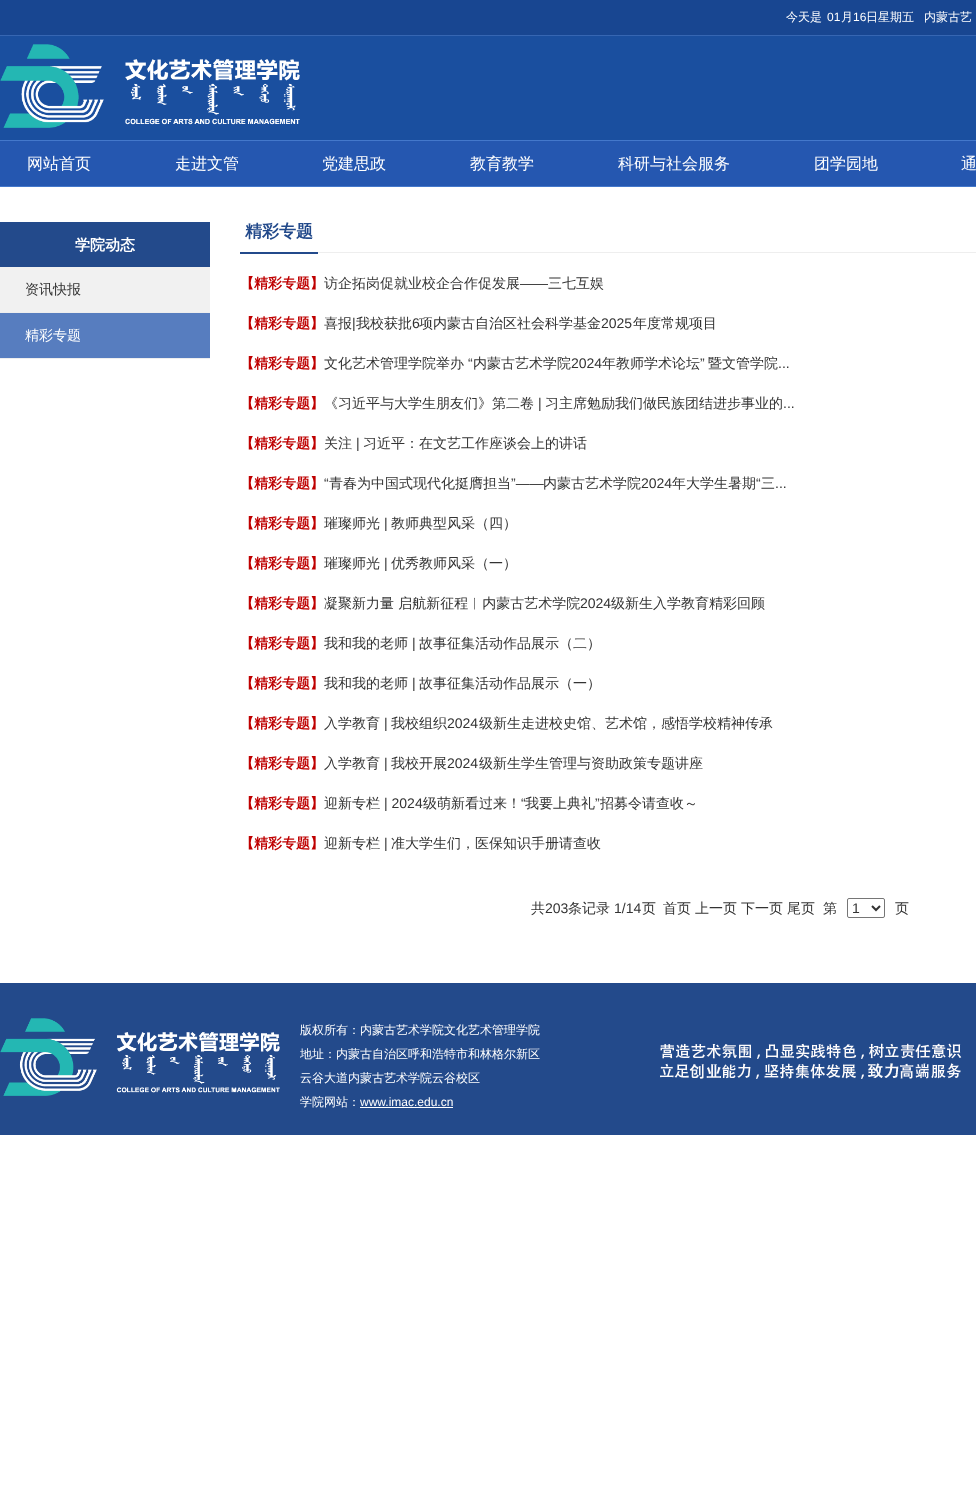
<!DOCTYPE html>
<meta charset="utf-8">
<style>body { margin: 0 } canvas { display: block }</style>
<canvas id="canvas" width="976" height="1502"></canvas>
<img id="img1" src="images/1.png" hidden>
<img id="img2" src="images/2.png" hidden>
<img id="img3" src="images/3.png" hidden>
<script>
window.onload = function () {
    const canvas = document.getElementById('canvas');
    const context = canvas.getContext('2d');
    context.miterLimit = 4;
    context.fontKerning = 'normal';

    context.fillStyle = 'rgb(255, 255, 255)';
    context.fillRect(0, 0, 976, 1502);
    context.fillStyle = 'rgb(26, 79, 159)';
    context.fillRect(0, 36, 976, 104);
    context.fillStyle = 'rgb(24, 70, 145)';
    context.fillRect(0, 0, 976, 35);
    context.fillStyle = 'rgb(54, 102, 178)';
    context.fillRect(0, 35, 976, 1);
    context.drawImage(document.getElementById('img1'), 0, 44, 300, 84);
    context.fillStyle = 'rgb(37, 87, 176)';
    context.fillRect(0, 141, 976, 45);
    context.fillStyle = 'rgb(68, 120, 203)';
    context.fillRect(0, 140, 976, 1);
    context.fillRect(0, 186, 976, 1);
    context.fillStyle = 'rgb(241, 241, 241)';
    context.fillRect(0, 267, 210, 45);
    context.fillStyle = 'rgb(35, 74, 139)';
    context.fillRect(0, 222, 210, 45);
    context.fillStyle = 'rgb(238, 238, 238)';
    context.fillRect(0, 312, 210, 1);
    context.fillStyle = 'rgb(87, 125, 191)';
    context.fillRect(0, 313, 210, 45);
    context.fillStyle = 'rgb(238, 238, 238)';
    context.fillRect(0, 358, 210, 1);
    context.fillRect(318, 252, 658, 1);
    context.fillStyle = 'rgb(35, 74, 139)';
    context.fillRect(240, 252, 78, 2);
    context.beginPath();
    context.roundRect(847.5, 898.5, 37, 19, 1.5);
    context.strokeStyle = 'rgb(118, 118, 118)';
    context.stroke();
    context.beginPath();
    context.moveTo(872, 906);
    context.lineTo(876, 910);
    context.lineTo(880, 906);
    context.strokeStyle = 'rgb(51, 51, 51)';
    context.lineWidth = 2;
    context.stroke();
    context.fillRect(0, 983, 976, 152);
    context.drawImage(document.getElementById('img2'), 0, 1018, 280, 78);
    context.fillStyle = 'rgb(255, 255, 255)';
    context.fillRect(360, 1107, 93, 1);
    context.drawImage(document.getElementById('img3'), 660, 1043, 302, 36);
    context.font = '500 12px WenQuanYi Zen Hei';
    context.fillText('今天是', 786, 21);
    context.font = '12px Liberation Sans';
    context.fillText('01', 827, 21);
    context.font = '500 12px WenQuanYi Zen Hei';
    context.fillText('月', 841, 21);
    context.font = '12px Liberation Sans';
    context.fillText('16', 853, 21);
    context.font = '500 12px WenQuanYi Zen Hei';
    context.fillText('日星期五', 866, 21);
    context.fillText('内蒙古艺', 924, 21);
    context.font = '500 16px WenQuanYi Zen Hei';
    context.fillText('网站首页', 27, 169);
    context.fillText('走进文管', 175, 169);
    context.fillText('党建思政', 322, 169);
    context.fillText('教育教学', 470, 169);
    context.fillText('科研与社会服务', 618, 169);
    context.fillText('团学园地', 814, 169);
    context.fillText('通', 961, 169);
    context.font = 'bold 15px WenQuanYi Zen Hei';
    context.fillText('学院动态', 75, 250);
    context.font = '500 14px WenQuanYi Zen Hei';
    context.fillStyle = 'rgb(51, 51, 51)';
    context.fillText('资讯快报', 25, 294);
    context.fillStyle = 'rgb(255, 255, 255)';
    context.fillText('精彩专题', 25, 340);
    context.font = 'bold 17px WenQuanYi Zen Hei';
    context.fillStyle = 'rgb(35, 74, 139)';
    context.fillText('精彩专题', 245, 237);
    context.font = 'bold 14px WenQuanYi Zen Hei';
    context.fillStyle = 'rgb(191, 0, 0)';
    context.fillText('【精彩专题】', 240, 288);
    context.font = '500 14px WenQuanYi Zen Hei';
    context.fillStyle = 'rgb(51, 51, 51)';
    context.fillText('访企拓岗促就业校企合作促发展', 324, 288);
    context.font = '14px Liberation Sans';
    context.fillText('——', 520, 288);
    context.font = '500 14px WenQuanYi Zen Hei';
    context.fillText('三七互娱', 548, 288);
    context.font = 'bold 14px WenQuanYi Zen Hei';
    context.fillStyle = 'rgb(191, 0, 0)';
    context.fillText('【精彩专题】', 240, 328);
    context.font = '500 14px WenQuanYi Zen Hei';
    context.fillStyle = 'rgb(51, 51, 51)';
    context.fillText('喜报', 324, 328);
    context.font = '14px Liberation Sans';
    context.fillText('|', 352, 328);
    context.font = '500 14px WenQuanYi Zen Hei';
    context.fillText('我校获批', 356, 328);
    context.font = '14px Liberation Sans';
    context.fillText('6', 412, 328);
    context.font = '500 14px WenQuanYi Zen Hei';
    context.fillText('项内蒙古自治区社会科学基金', 419, 328);
    context.font = '14px Liberation Sans';
    context.fillText('2025', 601, 328);
    context.font = '500 14px WenQuanYi Zen Hei';
    context.fillText('年度常规项目', 633, 328);
    context.font = 'bold 14px WenQuanYi Zen Hei';
    context.fillStyle = 'rgb(191, 0, 0)';
    context.fillText('【精彩专题】', 240, 368);
    context.font = '500 14px WenQuanYi Zen Hei';
    context.fillStyle = 'rgb(51, 51, 51)';
    context.fillText('文化艺术管理学院举办', 324, 368);
    context.font = '14px Liberation Sans';
    context.fillText('“', 468, 368);
    context.font = '500 14px WenQuanYi Zen Hei';
    context.fillText('内蒙古艺术学院', 473, 368);
    context.font = '14px Liberation Sans';
    context.fillText('2024', 571, 368);
    context.font = '500 14px WenQuanYi Zen Hei';
    context.fillText('年教师学术论坛', 602, 368);
    context.font = '14px Liberation Sans';
    context.fillText('”', 700, 368);
    context.font = '500 14px WenQuanYi Zen Hei';
    context.fillText('暨文管学院', 708, 368);
    context.font = '14px Liberation Sans';
    context.fillText('...', 778, 368);
    context.font = 'bold 14px WenQuanYi Zen Hei';
    context.fillStyle = 'rgb(191, 0, 0)';
    context.fillText('【精彩专题】', 240, 408);
    context.font = '500 14px WenQuanYi Zen Hei';
    context.fillStyle = 'rgb(51, 51, 51)';
    context.fillText('《习近平与大学生朋友们》第二卷', 324, 408);
    context.font = '14px Liberation Sans';
    context.fillText('|', 538, 408);
    context.font = '500 14px WenQuanYi Zen Hei';
    context.fillText('习主席勉励我们做民族团结进步事业的', 545, 408);
    context.font = '14px Liberation Sans';
    context.fillText('...', 783, 408);
    context.font = 'bold 14px WenQuanYi Zen Hei';
    context.fillStyle = 'rgb(191, 0, 0)';
    context.fillText('【精彩专题】', 240, 448);
    context.font = '500 14px WenQuanYi Zen Hei';
    context.fillStyle = 'rgb(51, 51, 51)';
    context.fillText('关注', 324, 448);
    context.font = '14px Liberation Sans';
    context.fillText('|', 356, 448);
    context.font = '500 14px WenQuanYi Zen Hei';
    context.fillText('习近平：在文艺工作座谈会上的讲话', 363, 448);
    context.font = 'bold 14px WenQuanYi Zen Hei';
    context.fillStyle = 'rgb(191, 0, 0)';
    context.fillText('【精彩专题】', 240, 488);
    context.font = '14px Liberation Sans';
    context.fillStyle = 'rgb(51, 51, 51)';
    context.fillText('“', 324, 488);
    context.font = '500 14px WenQuanYi Zen Hei';
    context.fillText('青春为中国式现代化挺膺担当', 329, 488);
    context.font = '14px Liberation Sans';
    context.fillText('”——', 511, 488);
    context.font = '500 14px WenQuanYi Zen Hei';
    context.fillText('内蒙古艺术学院', 543, 488);
    context.font = '14px Liberation Sans';
    context.fillText('2024', 641, 488);
    context.font = '500 14px WenQuanYi Zen Hei';
    context.fillText('年大学生暑期', 672, 488);
    context.font = '14px Liberation Sans';
    context.fillText('“', 756, 488);
    context.font = '500 14px WenQuanYi Zen Hei';
    context.fillText('三', 761, 488);
    context.font = '14px Liberation Sans';
    context.fillText('...', 775, 488);
    context.font = 'bold 14px WenQuanYi Zen Hei';
    context.fillStyle = 'rgb(191, 0, 0)';
    context.fillText('【精彩专题】', 240, 528);
    context.font = '500 14px WenQuanYi Zen Hei';
    context.fillStyle = 'rgb(51, 51, 51)';
    context.fillText('璀璨师光', 324, 528);
    context.font = '14px Liberation Sans';
    context.fillText('|', 384, 528);
    context.font = '500 14px WenQuanYi Zen Hei';
    context.fillText('教师典型风采（四）', 391, 528);
    context.font = 'bold 14px WenQuanYi Zen Hei';
    context.fillStyle = 'rgb(191, 0, 0)';
    context.fillText('【精彩专题】', 240, 568);
    context.font = '500 14px WenQuanYi Zen Hei';
    context.fillStyle = 'rgb(51, 51, 51)';
    context.fillText('璀璨师光', 324, 568);
    context.font = '14px Liberation Sans';
    context.fillText('|', 384, 568);
    context.font = '500 14px WenQuanYi Zen Hei';
    context.fillText('优秀教师风采（一）', 391, 568);
    context.font = 'bold 14px WenQuanYi Zen Hei';
    context.fillStyle = 'rgb(191, 0, 0)';
    context.fillText('【精彩专题】', 240, 608);
    context.font = '500 14px WenQuanYi Zen Hei';
    context.fillStyle = 'rgb(51, 51, 51)';
    context.fillText('凝聚新力量 启航新征程︱内蒙古艺术学院', 324, 608);
    context.font = '14px Liberation Sans';
    context.fillText('2024', 580, 608);
    context.font = '500 14px WenQuanYi Zen Hei';
    context.fillText('级新生入学教育精彩回顾', 611, 608);
    context.font = 'bold 14px WenQuanYi Zen Hei';
    context.fillStyle = 'rgb(191, 0, 0)';
    context.fillText('【精彩专题】', 240, 648);
    context.font = '500 14px WenQuanYi Zen Hei';
    context.fillStyle = 'rgb(51, 51, 51)';
    context.fillText('我和我的老师', 324, 648);
    context.font = '14px Liberation Sans';
    context.fillText('|', 412, 648);
    context.font = '500 14px WenQuanYi Zen Hei';
    context.fillText('故事征集活动作品展示（二）', 419, 648);
    context.font = 'bold 14px WenQuanYi Zen Hei';
    context.fillStyle = 'rgb(191, 0, 0)';
    context.fillText('【精彩专题】', 240, 688);
    context.font = '500 14px WenQuanYi Zen Hei';
    context.fillStyle = 'rgb(51, 51, 51)';
    context.fillText('我和我的老师', 324, 688);
    context.font = '14px Liberation Sans';
    context.fillText('|', 412, 688);
    context.font = '500 14px WenQuanYi Zen Hei';
    context.fillText('故事征集活动作品展示（一）', 419, 688);
    context.font = 'bold 14px WenQuanYi Zen Hei';
    context.fillStyle = 'rgb(191, 0, 0)';
    context.fillText('【精彩专题】', 240, 728);
    context.font = '500 14px WenQuanYi Zen Hei';
    context.fillStyle = 'rgb(51, 51, 51)';
    context.fillText('入学教育', 324, 728);
    context.font = '14px Liberation Sans';
    context.fillText('|', 384, 728);
    context.font = '500 14px WenQuanYi Zen Hei';
    context.fillText('我校组织', 391, 728);
    context.font = '14px Liberation Sans';
    context.fillText('2024', 447, 728);
    context.font = '500 14px WenQuanYi Zen Hei';
    context.fillText('级新生走进校史馆、艺术馆，感悟学校精神传承', 479, 728);
    context.font = 'bold 14px WenQuanYi Zen Hei';
    context.fillStyle = 'rgb(191, 0, 0)';
    context.fillText('【精彩专题】', 240, 768);
    context.font = '500 14px WenQuanYi Zen Hei';
    context.fillStyle = 'rgb(51, 51, 51)';
    context.fillText('入学教育', 324, 768);
    context.font = '14px Liberation Sans';
    context.fillText('|', 384, 768);
    context.font = '500 14px WenQuanYi Zen Hei';
    context.fillText('我校开展', 391, 768);
    context.font = '14px Liberation Sans';
    context.fillText('2024', 447, 768);
    context.font = '500 14px WenQuanYi Zen Hei';
    context.fillText('级新生学生管理与资助政策专题讲座', 479, 768);
    context.font = 'bold 14px WenQuanYi Zen Hei';
    context.fillStyle = 'rgb(191, 0, 0)';
    context.fillText('【精彩专题】', 240, 808);
    context.font = '500 14px WenQuanYi Zen Hei';
    context.fillStyle = 'rgb(51, 51, 51)';
    context.fillText('迎新专栏', 324, 808);
    context.font = '14px Liberation Sans';
    context.fillText('| 2024', 384, 808);
    context.font = '500 14px WenQuanYi Zen Hei';
    context.fillText('级萌新看过来！', 423, 808);
    context.font = '14px Liberation Sans';
    context.fillText('“', 521, 808);
    context.font = '500 14px WenQuanYi Zen Hei';
    context.fillText('我要上典礼', 525, 808);
    context.font = '14px Liberation Sans';
    context.fillText('”', 595, 808);
    context.font = '500 14px WenQuanYi Zen Hei';
    context.fillText('招募令请查收～', 600, 808);
    context.font = 'bold 14px WenQuanYi Zen Hei';
    context.fillStyle = 'rgb(191, 0, 0)';
    context.fillText('【精彩专题】', 240, 848);
    context.font = '500 14px WenQuanYi Zen Hei';
    context.fillStyle = 'rgb(51, 51, 51)';
    context.fillText('迎新专栏', 324, 848);
    context.font = '14px Liberation Sans';
    context.fillText('|', 384, 848);
    context.font = '500 14px WenQuanYi Zen Hei';
    context.fillText('准大学生们，医保知识手册请查收', 391, 848);
    context.fillText('共', 531, 913);
    context.font = '14px Liberation Sans';
    context.fillText('203', 545, 913);
    context.font = '500 14px WenQuanYi Zen Hei';
    context.fillText('条记录', 568, 913);
    context.font = '14px Liberation Sans';
    context.fillText('1/14', 614, 913);
    context.font = '500 14px WenQuanYi Zen Hei';
    context.fillText('页', 642, 913);
    context.fillText('首页', 663, 913);
    context.fillText('上一页', 695, 913);
    context.fillText('下一页', 741, 913);
    context.fillText('尾页', 787, 913);
    context.fillText('第', 823, 913);
    context.font = '14px Liberation Sans';
    context.fillText('1', 852, 913);
    context.font = '500 14px WenQuanYi Zen Hei';
    context.fillText('页', 895, 913);
    context.font = '500 12px WenQuanYi Zen Hei';
    context.fillStyle = 'rgb(255, 255, 255)';
    context.fillText('版权所有：内蒙古艺术学院文化艺术管理学院', 300, 1034);
    context.fillText('地址：内蒙古自治区呼和浩特市和林格尔新区', 300, 1058);
    context.fillText('云谷大道内蒙古艺术学院云谷校区', 300, 1082);
    context.fillText('学院网站：', 300, 1106);
    context.font = '12px Liberation Sans';
    context.fillText('www.imac.edu.cn', 360, 1106);
};
</script>
